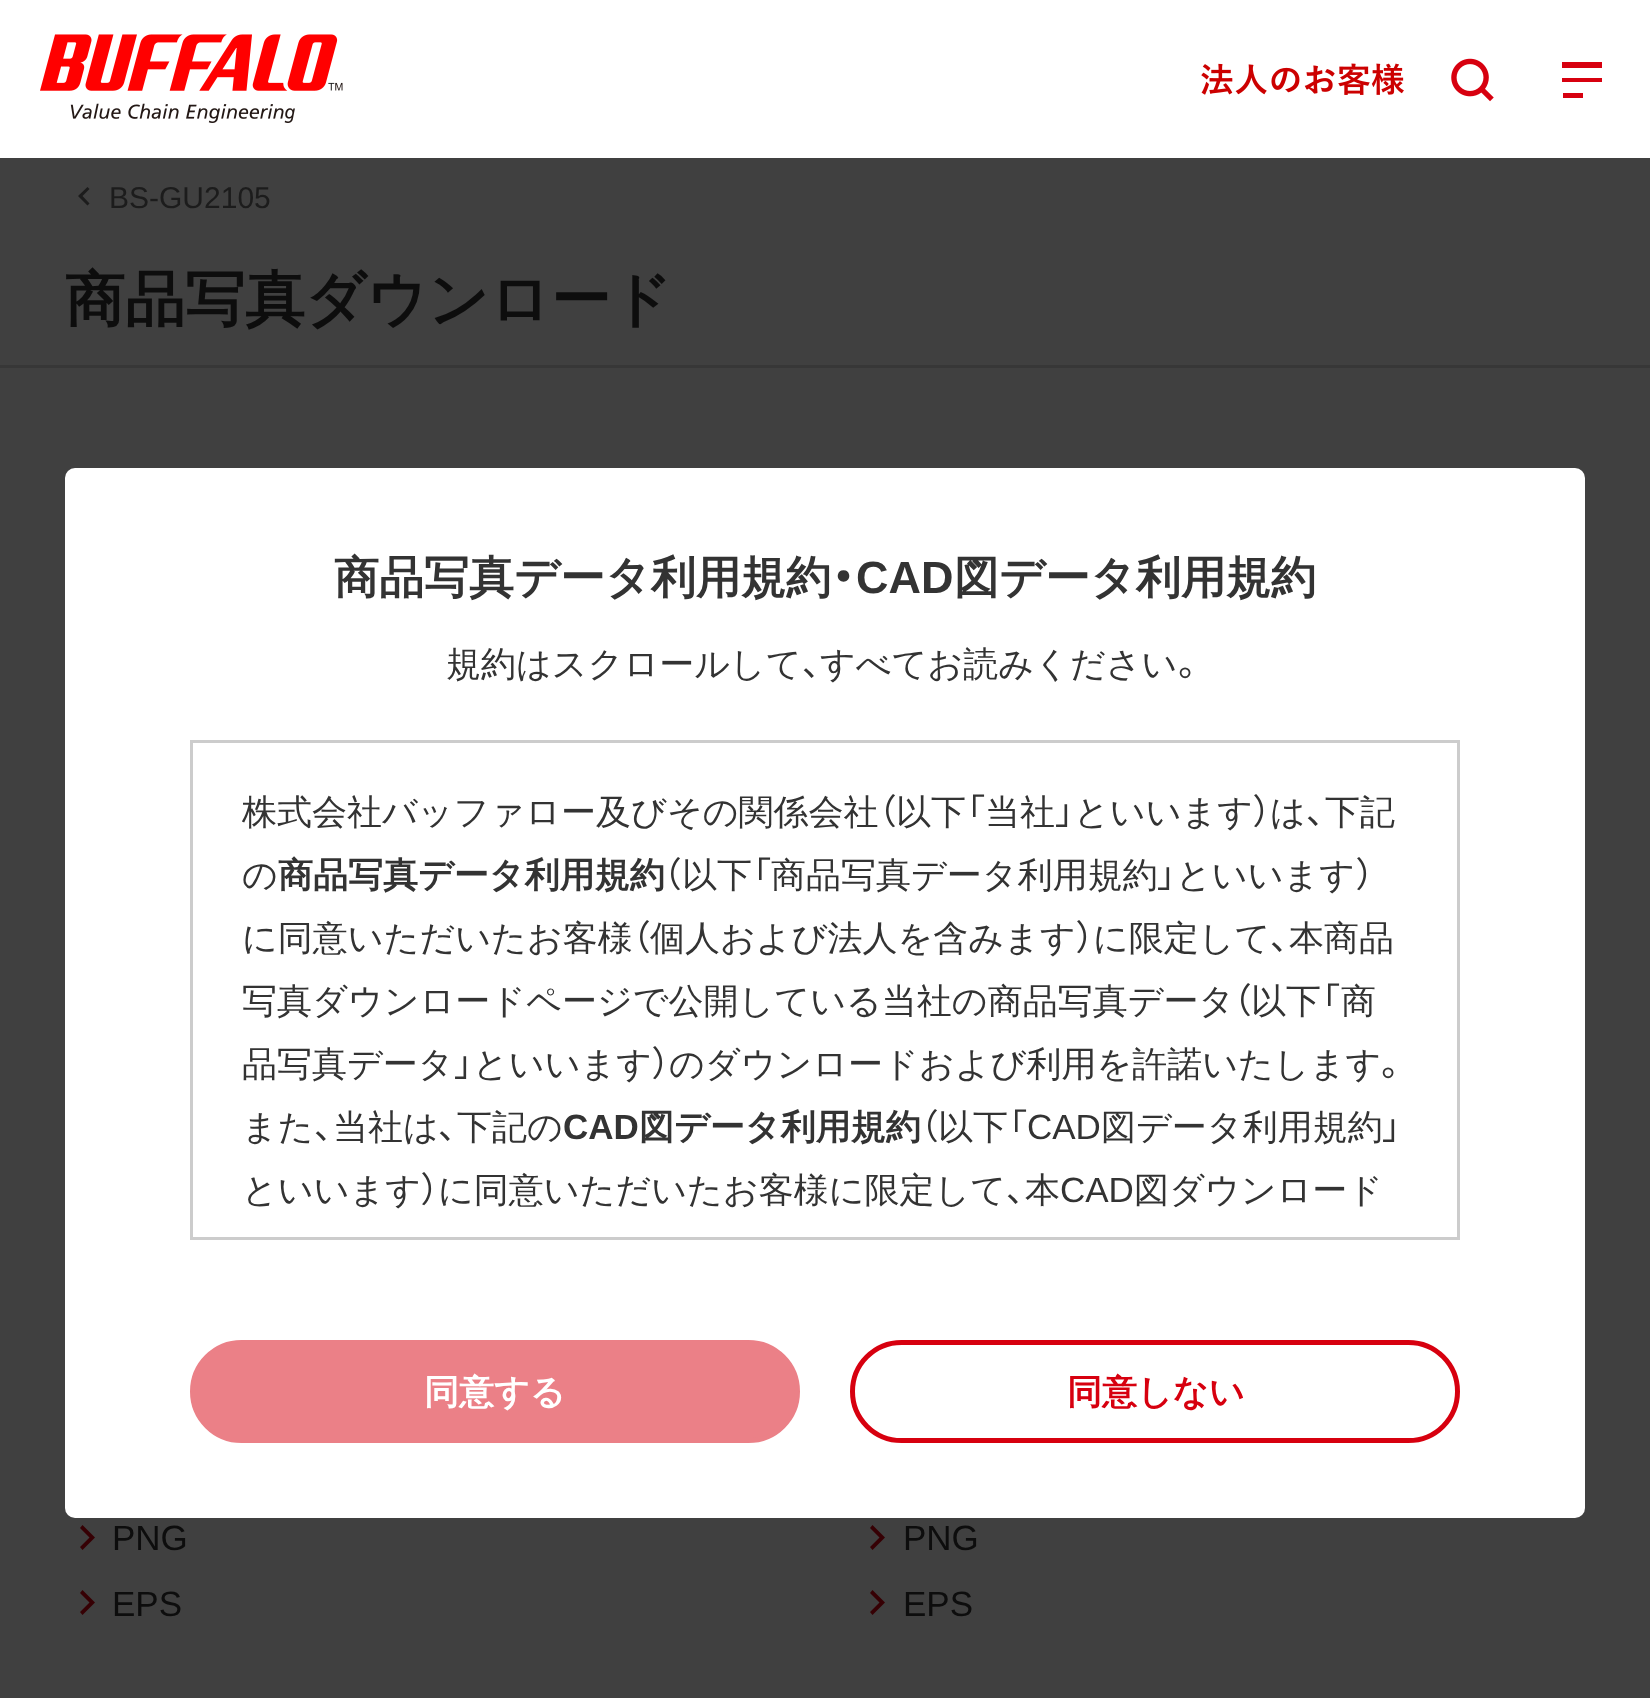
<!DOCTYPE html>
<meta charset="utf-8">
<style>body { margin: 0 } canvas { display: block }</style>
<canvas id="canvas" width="1650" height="1698"></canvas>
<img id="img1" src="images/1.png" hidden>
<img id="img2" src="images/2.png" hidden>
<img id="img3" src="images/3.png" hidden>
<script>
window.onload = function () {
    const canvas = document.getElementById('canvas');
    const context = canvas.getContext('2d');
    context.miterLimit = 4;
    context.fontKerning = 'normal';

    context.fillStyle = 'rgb(64, 64, 64)';
    context.fillRect(0, 0, 1650, 1698);
    context.fillStyle = 'rgb(255, 255, 255)';
    context.fillRect(0, 0, 1650, 158);
    context.drawImage(document.getElementById('img1'), 40, 34, 303, 89);
    context.drawImage(document.getElementById('img2'), 1201, 63, 203, 32);
    context.drawImage(document.getElementById('img3'), 1451, 58, 43, 44);
    context.fillStyle = 'rgb(215, 0, 15)';
    context.fillRect(1562, 62, 40, 6);
    context.fillRect(1562, 78, 40, 4);
    context.fillRect(1563, 93, 20, 5);
    context.fillStyle = 'rgb(28, 28, 28)';
    context.beginPath();
    context.moveTo(89.5, 189);
    context.lineTo(87.5, 187);
    context.lineTo(78, 196);
    context.lineTo(87.5, 205.5);
    context.lineTo(89.5, 203.5);
    context.lineTo(82.5, 196);
    context.closePath();
    context.fill();
    context.fillStyle = 'rgb(55, 55, 55)';
    context.fillRect(0, 365, 1650, 3);
    context.fillStyle = 'rgb(255, 255, 255)';
    context.beginPath();
    context.roundRect(65, 468, 1520, 1050, 10);
    context.fill();
    context.strokeStyle = 'rgb(204, 204, 204)';
    context.lineWidth = 3;
    context.strokeRect(191.5, 741.5, 1267, 497);
    context.fillStyle = 'rgb(235, 128, 135)';
    context.beginPath();
    context.roundRect(192.5, 1342.5, 605, 98, 49);
    context.fill();
    context.strokeStyle = 'rgb(235, 128, 135)';
    context.lineWidth = 5;
    context.stroke();
    context.beginPath();
    context.roundRect(852.5, 1342.5, 605, 98, 49);
    context.strokeStyle = 'rgb(215, 0, 15)';
    context.stroke();
    context.fillStyle = 'rgb(54, 0, 4)';
    context.beginPath();
    context.moveTo(82.5, 1525);
    context.lineTo(80, 1528);
    context.lineTo(89.5, 1537.5);
    context.lineTo(80, 1547);
    context.lineTo(82.5, 1550);
    context.lineTo(95, 1537.5);
    context.closePath();
    context.fill();
    context.beginPath();
    context.moveTo(82.5, 1590);
    context.lineTo(80, 1593);
    context.lineTo(89.5, 1602.5);
    context.lineTo(80, 1612);
    context.lineTo(82.5, 1615);
    context.lineTo(95, 1602.5);
    context.closePath();
    context.fill();
    context.beginPath();
    context.moveTo(872.5, 1525);
    context.lineTo(870, 1528);
    context.lineTo(879.5, 1537.5);
    context.lineTo(870, 1547);
    context.lineTo(872.5, 1550);
    context.lineTo(885, 1537.5);
    context.closePath();
    context.fill();
    context.beginPath();
    context.moveTo(872.5, 1590);
    context.lineTo(870, 1593);
    context.lineTo(879.5, 1602.5);
    context.lineTo(870, 1612);
    context.lineTo(872.5, 1615);
    context.lineTo(885, 1602.5);
    context.closePath();
    context.fill();
    context.font = '30px Liberation Sans';
    context.fillStyle = 'rgb(28, 28, 28)';
    context.fillText('BS-GU2105', 109, 208);
    context.font = 'bold 60px WenQuanYi Zen Hei';
    context.fillStyle = 'rgb(13, 13, 13)';
    context.fillText('商品写真ダウンロード', 65, 320);
    context.font = 'bold 45px WenQuanYi Zen Hei';
    context.fillStyle = 'rgb(51, 51, 51)';
    context.fillText('商品写真データ利用規約', 334, 593);
    context.font = 'bold 45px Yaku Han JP';
    context.fillText('・', 831, 593);
    context.font = 'bold 45px Liberation Sans';
    context.fillText('CAD', 856, 593);
    context.font = 'bold 45px WenQuanYi Zen Hei';
    context.fillText('図データ利用規約', 954, 593);
    context.font = '500 35px WenQuanYi Zen Hei';
    context.fillText('規約はスクロールして', 446, 676);
    context.font = '35px Yaku Han JP';
    context.fillText('、', 802, 676);
    context.font = '500 35px WenQuanYi Zen Hei';
    context.fillText('すべてお読みください', 820, 676);
    context.font = '35px Yaku Han JP';
    context.fillText('。', 1178, 676);
    context.font = '500 35px WenQuanYi Zen Hei';
    context.fillText('株式会社バッファロー及びその関係会社', 242, 824);
    context.font = '35px Yaku Han JP';
    context.fillText('（', 879, 824);
    context.font = '500 35px WenQuanYi Zen Hei';
    context.fillText('以下', 896, 824);
    context.font = '35px Yaku Han JP';
    context.fillText('「', 966, 824);
    context.font = '500 35px WenQuanYi Zen Hei';
    context.fillText('当社', 985, 824);
    context.font = '35px Yaku Han JP';
    context.fillText('」', 1055, 824);
    context.font = '500 35px WenQuanYi Zen Hei';
    context.fillText('といいます', 1074, 824);
    context.font = '35px Yaku Han JP';
    context.fillText('）', 1253, 824);
    context.font = '500 35px WenQuanYi Zen Hei';
    context.fillText('は', 1270, 824);
    context.font = '35px Yaku Han JP';
    context.fillText('、', 1306, 824);
    context.font = '500 35px WenQuanYi Zen Hei';
    context.fillText('下記', 1325, 824);
    context.fillText('の', 242, 887);
    context.font = 'bold 35px WenQuanYi Zen Hei';
    context.fillText('商品写真データ利用規約', 278, 887);
    context.font = '35px Yaku Han JP';
    context.fillText('（', 664, 887);
    context.font = '500 35px WenQuanYi Zen Hei';
    context.fillText('以下', 682, 887);
    context.font = '35px Yaku Han JP';
    context.fillText('「', 752, 887);
    context.font = '500 35px WenQuanYi Zen Hei';
    context.fillText('商品写真データ利用規約', 771, 887);
    context.font = '35px Yaku Han JP';
    context.fillText('」', 1157, 887);
    context.font = '500 35px WenQuanYi Zen Hei';
    context.fillText('といいます', 1176, 887);
    context.font = '35px Yaku Han JP';
    context.fillText('）', 1356, 887);
    context.font = '500 35px WenQuanYi Zen Hei';
    context.fillText('に同意いただいたお客様', 242, 950);
    context.font = '35px Yaku Han JP';
    context.fillText('（', 633, 950);
    context.font = '500 35px WenQuanYi Zen Hei';
    context.fillText('個人および法人を含みます', 650, 950);
    context.font = '35px Yaku Han JP';
    context.fillText('）', 1076, 950);
    context.font = '500 35px WenQuanYi Zen Hei';
    context.fillText('に限定して', 1093, 950);
    context.font = '35px Yaku Han JP';
    context.fillText('、', 1270, 950);
    context.font = '500 35px WenQuanYi Zen Hei';
    context.fillText('本商品', 1289, 950);
    context.fillText('写真ダウンロードページで公開している当社の商品写真データ', 242, 1013);
    context.font = '35px Yaku Han JP';
    context.fillText('（', 1234, 1013);
    context.font = '500 35px WenQuanYi Zen Hei';
    context.fillText('以下', 1251, 1013);
    context.font = '35px Yaku Han JP';
    context.fillText('「', 1321, 1013);
    context.font = '500 35px WenQuanYi Zen Hei';
    context.fillText('商', 1341, 1013);
    context.fillText('品写真データ', 242, 1076);
    context.font = '35px Yaku Han JP';
    context.fillText('」', 454, 1076);
    context.font = '500 35px WenQuanYi Zen Hei';
    context.fillText('といいます', 473, 1076);
    context.font = '35px Yaku Han JP';
    context.fillText('）', 652, 1076);
    context.font = '500 35px WenQuanYi Zen Hei';
    context.fillText('のダウンロードおよび利用を許諾いたします', 669, 1076);
    context.font = '35px Yaku Han JP';
    context.fillText('。', 1381, 1076);
    context.font = '500 35px WenQuanYi Zen Hei';
    context.fillText('また', 242, 1139);
    context.font = '35px Yaku Han JP';
    context.fillText('、', 314, 1139);
    context.font = '500 35px WenQuanYi Zen Hei';
    context.fillText('当社は', 333, 1139);
    context.font = '35px Yaku Han JP';
    context.fillText('、', 438, 1139);
    context.font = '500 35px WenQuanYi Zen Hei';
    context.fillText('下記の', 457, 1139);
    context.font = 'bold 35px Liberation Sans';
    context.fillText('CAD', 563, 1139);
    context.font = 'bold 35px WenQuanYi Zen Hei';
    context.fillText('図データ利用規約', 639, 1139);
    context.font = '35px Yaku Han JP';
    context.fillText('（', 921, 1139);
    context.font = '500 35px WenQuanYi Zen Hei';
    context.fillText('以下', 938, 1139);
    context.font = '35px Yaku Han JP';
    context.fillText('「', 1008, 1139);
    context.font = '35px Liberation Sans';
    context.fillText('CAD', 1027, 1139);
    context.font = '500 35px WenQuanYi Zen Hei';
    context.fillText('図データ利用規約', 1101, 1139);
    context.font = '35px Yaku Han JP';
    context.fillText('」', 1382, 1139);
    context.font = '500 35px WenQuanYi Zen Hei';
    context.fillText('といいます', 242, 1202);
    context.font = '35px Yaku Han JP';
    context.fillText('）', 421, 1202);
    context.font = '500 35px WenQuanYi Zen Hei';
    context.fillText('に同意いただいたお客様に限定して', 438, 1202);
    context.font = '35px Yaku Han JP';
    context.fillText('、', 1006, 1202);
    context.font = '500 35px WenQuanYi Zen Hei';
    context.fillText('本', 1025, 1202);
    context.font = '35px Liberation Sans';
    context.fillText('CAD', 1060, 1202);
    context.font = '500 35px WenQuanYi Zen Hei';
    context.fillText('図ダウンロード', 1134, 1202);
    context.font = 'bold 35px WenQuanYi Zen Hei';
    context.fillStyle = 'rgb(255, 255, 255)';
    context.fillText('同意する', 424, 1404);
    context.fillStyle = 'rgb(215, 0, 15)';
    context.fillText('同意しない', 1067, 1404);
    context.font = '35px Liberation Sans';
    context.fillStyle = 'rgb(13, 13, 13)';
    context.fillText('PNG', 112, 1550);
    context.fillText('EPS', 112, 1616);
    context.fillText('PNG', 903, 1550);
    context.fillText('EPS', 903, 1616);
};
</script>
